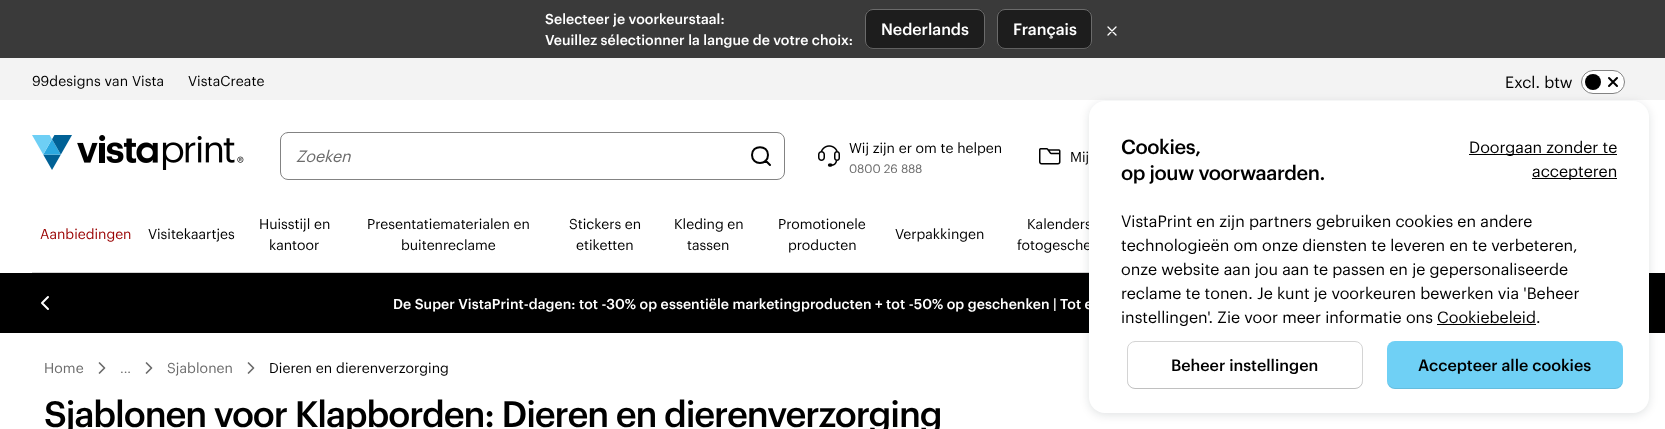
<!DOCTYPE html>
<meta charset="utf-8">
<style>body { margin: 0 } canvas { display: block }</style>
<canvas id="canvas" width="1665" height="429"></canvas>
<img id="img1" src="images/1.png" hidden>
<img id="img2" src="images/2.png" hidden>
<img id="img3" src="images/3.png" hidden>
<script>
window.onload = function () {
    const canvas = document.getElementById('canvas');
    const context = canvas.getContext('2d');
    context.miterLimit = 4;
    context.fontKerning = 'normal';

    context.fillStyle = 'rgb(255, 255, 255)';
    context.fillRect(0, 0, 1665, 429);
    context.fillStyle = 'rgb(58, 58, 58)';
    context.fillRect(0, 0, 1665, 58);
    context.fillStyle = 'rgb(29, 29, 29)';
    context.beginPath();
    context.roundRect(865, 9, 120, 40, 8);
    context.fill();
    context.beginPath();
    context.roundRect(865.5, 9.5, 119, 39, 7.5);
    context.strokeStyle = 'rgba(255, 255, 255, 0.35)';
    context.stroke();
    context.fillStyle = 'rgba(0, 0, 0, 0.09)';
    context.beginPath();
    context.moveTo(865, 40);
    context.bezierCurveTo(865, 53, 882, 49, 890, 49);
    context.lineTo(960, 49);
    context.bezierCurveTo(968, 49, 985, 53, 985, 40);
    context.bezierCurveTo(985, 44, 981, 48, 977, 48);
    context.lineTo(873, 48);
    context.bezierCurveTo(869, 48, 865, 44, 865, 40);
    context.closePath();
    context.fill();
    context.fillStyle = 'rgb(29, 29, 29)';
    context.beginPath();
    context.roundRect(997, 9, 95, 40, 8);
    context.fill();
    context.beginPath();
    context.roundRect(997.5, 9.5, 94, 39, 7.5);
    context.stroke();
    context.fillStyle = 'rgba(0, 0, 0, 0.09)';
    context.beginPath();
    context.moveTo(997, 40);
    context.bezierCurveTo(997, 52, 1010, 49, 1018, 49);
    context.lineTo(1071, 49);
    context.bezierCurveTo(1079, 49, 1092, 52, 1092, 40);
    context.bezierCurveTo(1092, 44, 1088, 48, 1084, 48);
    context.lineTo(1005, 48);
    context.bezierCurveTo(1001, 48, 997, 44, 997, 40);
    context.closePath();
    context.fill();
    context.beginPath();
    context.moveTo(1116, 27);
    context.lineTo(1108, 35);
    context.moveTo(1108, 27);
    context.lineTo(1116, 35);
    context.strokeStyle = 'rgb(255, 255, 255)';
    context.lineWidth = 1.3;
    context.lineCap = 'round';
    context.lineJoin = 'round';
    context.stroke();
    context.fillStyle = 'rgb(243, 243, 243)';
    context.fillRect(0, 58, 1665, 42);
    context.fillStyle = 'rgb(255, 255, 255)';
    context.beginPath();
    context.roundRect(1581, 70, 44, 24, 12);
    context.fill();
    context.beginPath();
    context.moveTo(1617, 78);
    context.lineTo(1609, 86);
    context.moveTo(1609, 78);
    context.lineTo(1617, 86);
    context.strokeStyle = 'rgb(0, 0, 0)';
    context.lineWidth = 2;
    context.stroke();
    context.beginPath();
    context.roundRect(1581.5, 70.5, 43, 23, 11.5);
    context.strokeStyle = 'rgb(131, 131, 131)';
    context.lineWidth = 1;
    context.lineJoin = 'miter';
    context.stroke();
    context.fillStyle = 'rgb(0, 0, 0)';
    context.beginPath();
    context.arc(1593, 82, 8, 0, 2 * Math.PI);
    context.fill();
    context.drawImage(document.getElementById('img1'), 32, 135, 212, 35);
    context.beginPath();
    context.roundRect(280.5, 132.5, 504, 47, 7.5);
    context.stroke();
    context.beginPath();
    context.moveTo(770, 165);
    context.lineTo(765.5, 160.5);
    context.moveTo(768, 155);
    context.bezierCurveTo(768, 165.5, 752, 165.5, 752, 155);
    context.bezierCurveTo(752, 144.5, 768, 144.5, 768, 155);
    context.closePath();
    context.strokeStyle = 'rgb(0, 0, 0)';
    context.lineWidth = 2;
    context.lineJoin = 'round';
    context.stroke();
    context.drawImage(document.getElementById('img2'), 818, 145, 22, 22);
    context.drawImage(document.getElementById('img3'), 1039, 148, 22, 17);
    context.fillStyle = 'rgb(211, 211, 211)';
    context.fillRect(32, 272, 1057, 1);
    context.fillStyle = 'rgb(0, 0, 0)';
    context.fillRect(0, 273, 1665, 60);
    context.beginPath();
    context.moveTo(48, 309);
    context.lineTo(42, 303);
    context.lineTo(48, 297);
    context.strokeStyle = 'rgb(255, 255, 255)';
    context.stroke();
    context.beginPath();
    context.moveTo(99.5, 373);
    context.lineTo(104.5, 368);
    context.lineTo(99.5, 363);
    context.strokeStyle = 'rgb(108, 108, 108)';
    context.lineWidth = 1.7;
    context.stroke();
    context.beginPath();
    context.moveTo(146.5, 373);
    context.lineTo(151.5, 368);
    context.lineTo(146.5, 363);
    context.stroke();
    context.beginPath();
    context.moveTo(248.5, 373);
    context.lineTo(253.5, 368);
    context.lineTo(248.5, 363);
    context.stroke();
    context.fillStyle = 'rgba(0, 17, 26, 0.12)';
    context.filter = 'blur(5px)';
    context.beginPath();
    context.roundRect(1089, 103, 560, 312, 16);
    context.fill();
    context.filter = 'none';
    context.letterSpacing = '0.07px';
    context.font = '500 14px Graphik';
    context.fillStyle = 'rgb(255, 255, 255)';
    context.fillText('Selecteer je voorkeurstaal:', 545, 24);
    context.fillText('Veuillez sélectionner la langue de votre choix:', 545, 45);
    context.letterSpacing = '0px';
    context.font = '500 16px Graphik';
    context.fillText('Nederlands', 881, 35);
    context.fillText('Français', 1013, 35);
    context.letterSpacing = '0.07px';
    context.font = '14px Graphik';
    context.fillStyle = 'rgb(0, 0, 0)';
    context.fillText('99designs van Vista', 32, 86);
    context.fillText('VistaCreate', 188, 86);
    context.letterSpacing = '0px';
    context.font = '16px Graphik';
    context.fillText('Excl. btw', 1505, 88);
    context.font = 'italic 16px Graphik';
    context.fillStyle = 'rgb(108, 108, 108)';
    context.fillText('Zoeken', 296, 162);
    context.font = '14px Graphik';
    context.fillStyle = 'rgb(0, 0, 0)';
    context.fillText('Wij zijn er om te helpen', 849, 153);
    context.font = '12px Graphik';
    context.fillStyle = 'rgb(108, 108, 108)';
    context.fillText('0800 26 888', 849, 173);
    context.font = '14px Graphik';
    context.fillStyle = 'rgb(0, 0, 0)';
    context.fillText('Mij', 1070, 162);
    context.fillStyle = 'rgb(154, 2, 2)';
    context.fillText('Aanbiedingen', 40, 239);
    context.fillStyle = 'rgb(0, 0, 0)';
    context.fillText('Visitekaartjes', 148, 239);
    context.fillText('Huisstijl en', 259, 229);
    context.fillText('kantoor', 269, 250);
    context.fillText('Presentatiematerialen en', 367, 229);
    context.fillText('buitenreclame', 401, 250);
    context.fillText('Stickers en', 569, 229);
    context.fillText('etiketten', 576, 250);
    context.fillText('Kleding en', 674, 229);
    context.fillText('tassen', 687, 250);
    context.fillText('Promotionele', 778, 229);
    context.fillText('producten', 788, 250);
    context.fillText('Verpakkingen', 895, 239);
    context.fillText('Kalenders', 1027, 229);
    context.fillText('fotogesche', 1017, 250);
    context.letterSpacing = '0.07px';
    context.font = '500 14px Graphik';
    context.fillStyle = 'rgb(255, 255, 255)';
    context.fillText('De Super VistaPrint-dagen: tot -30% op essentiële marketingproducten + tot -50% op geschenken | Tot e', 393, 309);
    context.font = '14px Graphik';
    context.fillStyle = 'rgb(108, 108, 108)';
    context.fillText('Home', 44, 373);
    context.letterSpacing = '0px';
    context.font = '13px Graphik';
    context.fillText('...', 120, 373);
    context.letterSpacing = '0.07px';
    context.font = '14px Graphik';
    context.fillText('Sjablonen', 167, 373);
    context.fillStyle = 'rgb(0, 0, 0)';
    context.fillText('Dieren en dierenverzorging', 269, 373);
    context.letterSpacing = '-1.08px';
    context.font = '500 36px Graphik';
    context.fillText('Sjablonen voor Klapborden: Dieren en dierenverzorging', 44, 427);
    context.fillStyle = 'rgb(255, 255, 255)';
    context.beginPath();
    context.roundRect(1089, 101, 560, 312, 16);
    context.fill();
    context.letterSpacing = '-0.4px';
    context.font = '500 20px Graphik';
    context.fillStyle = 'rgb(0, 0, 0)';
    context.fillText('Cookies,', 1121, 154);
    context.fillText('op jouw voorwaarden.', 1121, 180);
    context.fillRect(1469, 154, 148, 1);
    context.letterSpacing = '0px';
    context.font = '16px Graphik';
    context.fillText('Doorgaan zonder te', 1469, 153);
    context.fillRect(1532, 178, 85, 1);
    context.fillText('accepteren', 1532, 177);
    context.fillText('VistaPrint en zijn partners gebruiken cookies en andere', 1121, 227);
    context.fillText('technologieën om onze diensten te leveren en te verbeteren,', 1121, 251);
    context.fillText('onze website aan jou aan te passen en je gepersonaliseerde', 1121, 275);
    context.fillText('reclame te tonen. Je kunt je voorkeuren bewerken via \'Beheer', 1121, 299);
    context.fillText('instellingen\'. Zie voor meer informatie ons Cookiebeleid.', 1121, 323);
    context.fillRect(1437, 324, 99, 1);
    context.beginPath();
    context.roundRect(1127.5, 341.5, 235, 47, 7.5);
    context.strokeStyle = 'rgb(212, 212, 212)';
    context.lineWidth = 1;
    context.lineJoin = 'miter';
    context.stroke();
    context.fillStyle = 'rgba(0, 0, 0, 0.09)';
    context.beginPath();
    context.moveTo(1127, 380);
    context.lineTo(1127, 381);
    context.bezierCurveTo(1127, 385, 1131, 389, 1135, 389);
    context.lineTo(1355, 389);
    context.bezierCurveTo(1359, 389, 1363, 385, 1363, 381);
    context.lineTo(1363, 380);
    context.bezierCurveTo(1363, 384, 1359, 388, 1355, 388);
    context.lineTo(1135, 388);
    context.bezierCurveTo(1131, 388, 1127, 384, 1127, 380);
    context.closePath();
    context.fill();
    context.font = '500 16px Graphik';
    context.fillStyle = 'rgb(0, 0, 0)';
    context.fillText('Beheer instellingen', 1171, 371);
    context.fillStyle = 'rgb(111, 208, 245)';
    context.beginPath();
    context.roundRect(1387, 341, 236, 48, 8);
    context.fill();
    context.fillStyle = 'rgba(0, 0, 0, 0.09)';
    context.beginPath();
    context.moveTo(1387, 380);
    context.lineTo(1387, 381);
    context.bezierCurveTo(1387, 385, 1391, 389, 1395, 389);
    context.lineTo(1615, 389);
    context.bezierCurveTo(1619, 389, 1623, 385, 1623, 381);
    context.lineTo(1623, 380);
    context.bezierCurveTo(1623, 384, 1619, 388, 1615, 388);
    context.lineTo(1395, 388);
    context.bezierCurveTo(1391, 388, 1387, 384, 1387, 380);
    context.closePath();
    context.fill();
    context.fillStyle = 'rgb(0, 0, 0)';
    context.fillText('Accepteer alle cookies', 1418, 371);
};
</script>
